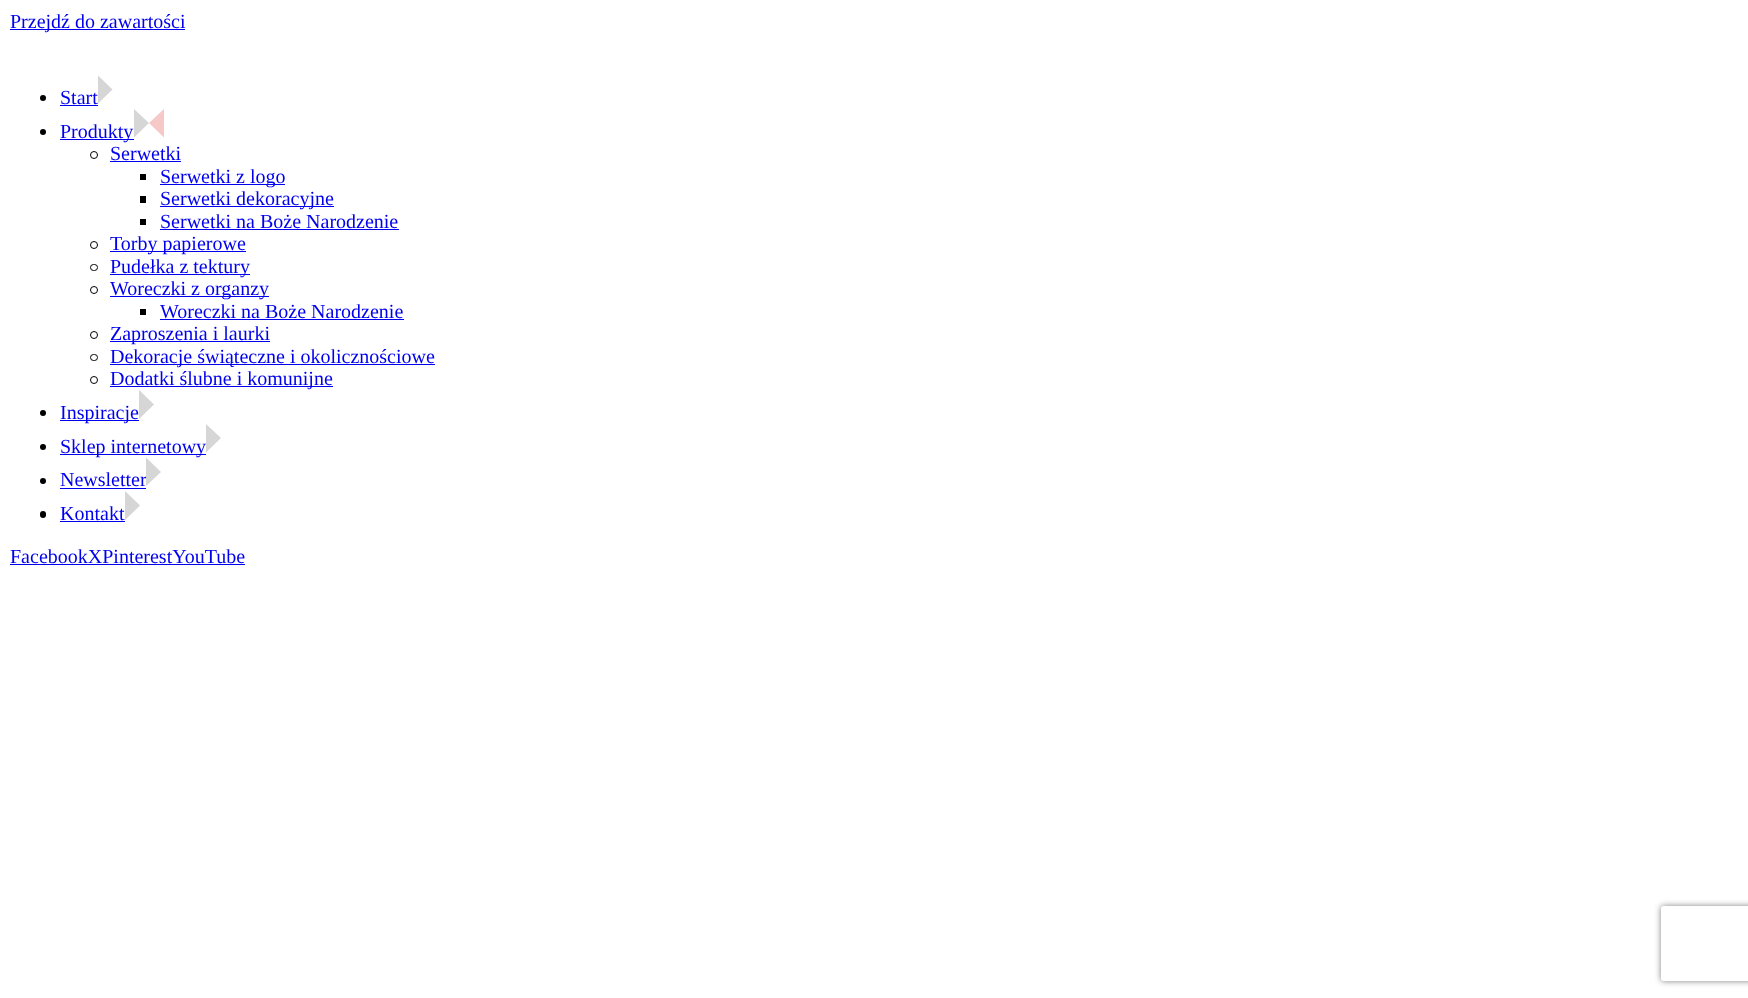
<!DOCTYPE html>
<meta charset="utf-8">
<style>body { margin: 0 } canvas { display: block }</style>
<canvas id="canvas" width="1748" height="998"></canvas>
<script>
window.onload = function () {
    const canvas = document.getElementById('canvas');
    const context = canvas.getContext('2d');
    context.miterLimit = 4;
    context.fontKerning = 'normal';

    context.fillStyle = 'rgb(255, 255, 255)';
    context.fillRect(0, 0, 1748, 998);
    context.fillStyle = 'rgb(0, 0, 238)';
    context.fillRect(10, 29, 175, 1);
    context.fillStyle = 'rgb(0, 0, 0)';
    context.beginPath();
    context.arc(43, 98, 3, 0, 2 * Math.PI);
    context.fill();
    context.fillStyle = 'rgb(0, 0, 238)';
    context.fillRect(60, 105, 38, 1);
    context.save();
    context.beginPath();
    context.rect(98, 75, 15, 29);
    context.clip();
    context.fillStyle = 'rgb(214, 214, 214)';
    context.beginPath();
    context.moveTo(97.5, 75);
    context.lineTo(112.5, 89.5);
    context.lineTo(97.5, 104);
    context.closePath();
    context.fill();
    context.restore();
    context.fillStyle = 'rgb(0, 0, 0)';
    context.beginPath();
    context.arc(43, 132, 3, 0, 2 * Math.PI);
    context.fill();
    context.fillStyle = 'rgb(0, 0, 238)';
    context.fillRect(60, 139, 74, 1);
    context.fillStyle = 'rgb(214, 214, 214)';
    context.beginPath();
    context.moveTo(134, 109);
    context.lineTo(149, 123);
    context.lineTo(134, 137.5);
    context.closePath();
    context.fill();
    context.fillStyle = 'rgb(246, 200, 200)';
    context.beginPath();
    context.moveTo(164, 109);
    context.lineTo(149, 123);
    context.lineTo(164, 137.5);
    context.closePath();
    context.fill();
    context.beginPath();
    context.arc(94, 155, 3.5, 0, 2 * Math.PI);
    context.strokeStyle = 'rgb(0, 0, 0)';
    context.stroke();
    context.fillStyle = 'rgb(0, 0, 238)';
    context.fillRect(110, 161, 71, 1);
    context.fillStyle = 'rgb(0, 0, 0)';
    context.fillRect(140, 174, 6, 6);
    context.fillStyle = 'rgb(0, 0, 238)';
    context.fillRect(160, 184, 125, 1);
    context.fillStyle = 'rgb(0, 0, 0)';
    context.fillRect(140, 196, 6, 7);
    context.fillStyle = 'rgb(0, 0, 238)';
    context.fillRect(160, 206, 174, 1);
    context.fillStyle = 'rgb(0, 0, 0)';
    context.fillRect(140, 219, 6, 6);
    context.fillStyle = 'rgb(0, 0, 238)';
    context.fillRect(160, 229, 239, 1);
    context.beginPath();
    context.arc(94, 245, 3.5, 0, 2 * Math.PI);
    context.stroke();
    context.fillRect(110, 251, 136, 1);
    context.beginPath();
    context.roundRect(90.5, 264.5, 7, 6, 3);
    context.stroke();
    context.fillRect(110, 274, 140, 1);
    context.beginPath();
    context.arc(94, 290, 3.5, 0, 2 * Math.PI);
    context.stroke();
    context.fillRect(110, 296, 159, 1);
    context.fillStyle = 'rgb(0, 0, 0)';
    context.fillRect(140, 309, 6, 6);
    context.fillStyle = 'rgb(0, 0, 238)';
    context.fillRect(160, 319, 244, 1);
    context.beginPath();
    context.arc(94, 335, 3.5, 0, 2 * Math.PI);
    context.stroke();
    context.fillRect(110, 341, 160, 1);
    context.beginPath();
    context.roundRect(90.5, 354.5, 7, 6, 3);
    context.stroke();
    context.fillRect(110, 364, 325, 1);
    context.beginPath();
    context.arc(94, 380, 3.5, 0, 2 * Math.PI);
    context.stroke();
    context.fillRect(110, 386, 223, 1);
    context.fillStyle = 'rgb(0, 0, 0)';
    context.beginPath();
    context.arc(43, 413, 3, 0, 2 * Math.PI);
    context.fill();
    context.fillStyle = 'rgb(0, 0, 238)';
    context.fillRect(60, 420, 79, 1);
    context.fillStyle = 'rgb(214, 214, 214)';
    context.beginPath();
    context.moveTo(139, 390);
    context.lineTo(154, 404.5);
    context.lineTo(139, 419);
    context.closePath();
    context.fill();
    context.fillStyle = 'rgb(0, 0, 0)';
    context.beginPath();
    context.arc(43, 447, 3, 0, 2 * Math.PI);
    context.fill();
    context.fillStyle = 'rgb(0, 0, 238)';
    context.fillRect(60, 454, 146, 1);
    context.fillStyle = 'rgb(0, 0, 0)';
    context.beginPath();
    context.arc(43, 481, 3, 0, 2 * Math.PI);
    context.fill();
    context.fillStyle = 'rgb(0, 0, 238)';
    context.fillRect(60, 488, 86, 1);
    context.fillStyle = 'rgb(0, 0, 0)';
    context.beginPath();
    context.roundRect(40, 511, 6, 7, 3);
    context.fill();
    context.fillStyle = 'rgb(0, 0, 238)';
    context.fillRect(60, 521, 65, 1);
    context.fillRect(10, 564, 235, 1);
    context.save();
    context.beginPath();
    context.moveTo(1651, 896);
    context.lineTo(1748, 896);
    context.lineTo(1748, 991);
    context.lineTo(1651, 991);
    context.closePath();
    context.moveTo(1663.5, 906);
    context.lineTo(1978.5, 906);
    context.bezierCurveTo(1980, 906, 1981, 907, 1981, 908.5);
    context.lineTo(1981, 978.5);
    context.bezierCurveTo(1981, 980, 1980, 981, 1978.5, 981);
    context.lineTo(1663.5, 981);
    context.bezierCurveTo(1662, 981, 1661, 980, 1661, 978.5);
    context.lineTo(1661, 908.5);
    context.bezierCurveTo(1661, 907, 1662, 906, 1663.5, 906);
    context.closePath();
    context.clip('evenodd');
    context.fillStyle = 'rgb(128, 128, 128)';
    context.filter = 'blur(3px)';
    context.beginPath();
    context.roundRect(1661, 906, 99, 75, 2.5);
    context.fill();
    context.filter = 'none';
    context.restore();
    context.font = '20px Liberation Serif';
    context.fillText('Przejdź do zawartości', 10, 28);
    context.fillText('Start', 60, 104);
    context.fillText('Produkty', 60, 138);
    context.fillText('Serwetki', 110, 160);
    context.fillText('Serwetki z logo', 160, 183);
    context.fillText('Serwetki dekoracyjne', 160, 205);
    context.fillText('Serwetki na Boże Narodzenie', 160, 228);
    context.fillText('Torby papierowe', 110, 250);
    context.fillText('Pudełka z tektury', 110, 273);
    context.fillText('Woreczki z organzy', 110, 295);
    context.fillText('Woreczki na Boże Narodzenie', 160, 318);
    context.fillText('Zaproszenia i laurki', 110, 340);
    context.fillText('Dekoracje świąteczne i okolicznościowe', 110, 363);
    context.fillText('Dodatki ślubne i komunijne', 110, 385);
    context.fillText('Inspiracje', 60, 419);
    context.fillText('Sklep internetowy', 60, 453);
    context.fillStyle = 'rgb(214, 214, 214)';
    context.beginPath();
    context.moveTo(206, 424);
    context.lineTo(221, 438);
    context.lineTo(206, 452.5);
    context.closePath();
    context.fill();
    context.fillStyle = 'rgb(0, 0, 238)';
    context.fillText('Newsletter', 60, 486);
    context.fillStyle = 'rgb(214, 214, 214)';
    context.beginPath();
    context.moveTo(146, 457.5);
    context.lineTo(161, 472);
    context.lineTo(146, 486);
    context.closePath();
    context.moveTo(125, 491);
    context.lineTo(140, 505.5);
    context.lineTo(125, 520);
    context.closePath();
    context.fill();
    context.fillStyle = 'rgb(0, 0, 238)';
    context.fillText('Kontakt', 60, 520);
    context.fillText('FacebookXPinterestYouTube', 10, 563);
};
</script>
